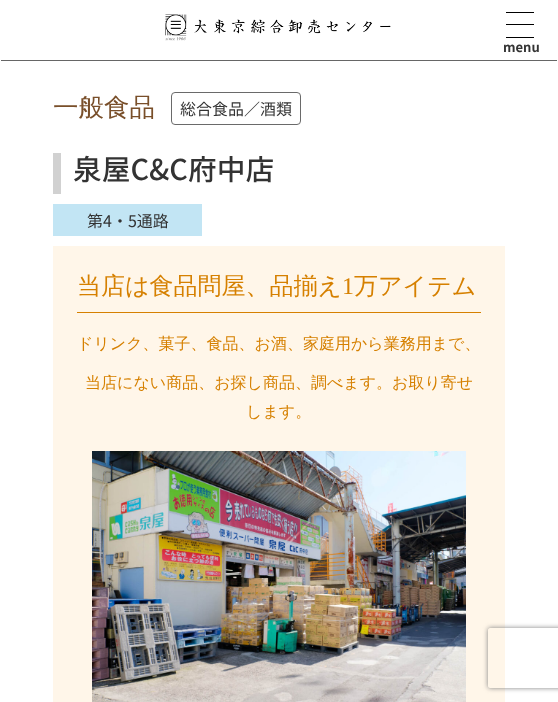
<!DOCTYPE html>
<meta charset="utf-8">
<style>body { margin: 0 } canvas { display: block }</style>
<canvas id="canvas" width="558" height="702"></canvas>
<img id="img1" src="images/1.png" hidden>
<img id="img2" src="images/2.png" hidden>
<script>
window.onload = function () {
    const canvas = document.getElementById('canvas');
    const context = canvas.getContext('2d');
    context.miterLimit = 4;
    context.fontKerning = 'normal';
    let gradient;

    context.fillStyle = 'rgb(255, 255, 255)';
    context.fillRect(0, 0, 558, 702);
    context.save();
    context.beginPath();
    context.rect(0, 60, 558, 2);
    context.clip();
    context.fillStyle = 'rgba(0, 0, 0, 0.6)';
    context.filter = 'blur(0.5px)';
    context.beginPath();
    context.rect(1, 3, 556, 58);
    context.fill();
    context.filter = 'none';
    context.restore();
    context.drawImage(document.getElementById('img1'), 165, 14, 226, 27);
    gradient = context.createLinearGradient(520, 38, 520, 12);
    gradient.addColorStop(0, 'rgb(255, 255, 255)');
    gradient.addColorStop(0.5, 'rgb(255, 255, 255)');
    gradient.addColorStop(0.5, 'rgb(0, 0, 0)');
    gradient.addColorStop(0.54, 'rgb(0, 0, 0)');
    gradient.addColorStop(0.54, 'rgb(255, 255, 255)');
    gradient.addColorStop(0.69, 'rgb(255, 255, 255)');
    context.fillStyle = gradient;
    context.fillRect(506, 24, 28, 1);
    context.fillStyle = 'rgb(0, 0, 0)';
    context.fillRect(506, 12, 28, 1);
    context.fillRect(506, 37, 28, 1);
    context.beginPath();
    context.roundRect(171.5, 92.5, 129, 32, 3.5);
    context.strokeStyle = 'rgb(106, 106, 106)';
    context.stroke();
    context.fillStyle = 'rgb(209, 209, 209)';
    context.fillRect(53, 153, 8, 41);
    context.fillStyle = 'rgb(194, 229, 244)';
    context.fillRect(53, 204, 149, 32);
    context.fillStyle = 'rgb(255, 246, 233)';
    context.fillRect(53, 246, 452, 456);
    context.fillStyle = 'rgb(214, 128, 0)';
    context.fillRect(77, 312, 404, 1);
    context.drawImage(document.getElementById('img2'), 92, 451, 374, 251);
    context.save();
    context.beginPath();
    context.moveTo(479, 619);
    context.lineTo(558, 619);
    context.lineTo(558, 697);
    context.lineTo(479, 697);
    context.closePath();
    context.moveTo(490, 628);
    context.lineTo(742, 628);
    context.bezierCurveTo(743, 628, 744, 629, 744, 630);
    context.lineTo(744, 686);
    context.bezierCurveTo(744, 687, 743, 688, 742, 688);
    context.lineTo(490, 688);
    context.bezierCurveTo(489, 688, 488, 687, 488, 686);
    context.lineTo(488, 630);
    context.bezierCurveTo(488, 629, 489, 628, 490, 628);
    context.closePath();
    context.clip('evenodd');
    context.fillStyle = 'rgb(128, 128, 128)';
    context.filter = 'blur(2.5px)';
    context.beginPath();
    context.roundRect(488, 628, 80, 60, 2);
    context.fill();
    context.filter = 'none';
    context.restore();
    context.font = 'bold 13px Noto Sans JP';
    context.fillStyle = 'rgb(51, 51, 51)';
    context.fillText('menu', 503, 52);
    context.font = '500 25.5px WenQuanYi Zen Hei';
    context.fillStyle = 'rgb(121, 79, 42)';
    context.fillText('一般食品', 53, 116);
    context.font = '16px Noto Sans JP';
    context.fillStyle = 'rgb(51, 51, 51)';
    context.fillText('総合食品／酒類', 180, 115);
    context.font = '500 28.75px Noto Sans JP';
    context.fillText('泉屋C&C府中店', 73, 180);
    context.font = '16px Noto Sans JP';
    context.fillText('第4・5通路', 87, 227);
    context.font = '500 24px WenQuanYi Zen Hei';
    context.fillStyle = 'rgb(214, 128, 0)';
    context.fillText('当店は食品問屋、品揃え', 77, 294);
    context.font = '24px Liberation Serif';
    context.fillText('1', 342, 294);
    context.font = '500 24px WenQuanYi Zen Hei';
    context.fillText('万アイテム', 354, 294);
    context.font = '500 16px WenQuanYi Zen Hei';
    context.fillText('ドリンク、菓子、食品、お酒、家庭用から業務用まで、', 77, 349);
    context.fillText('当店にない商品、お探し商品、調べます。お取り寄せ', 85, 388);
    context.fillText('します。', 246, 417);
};
</script>
